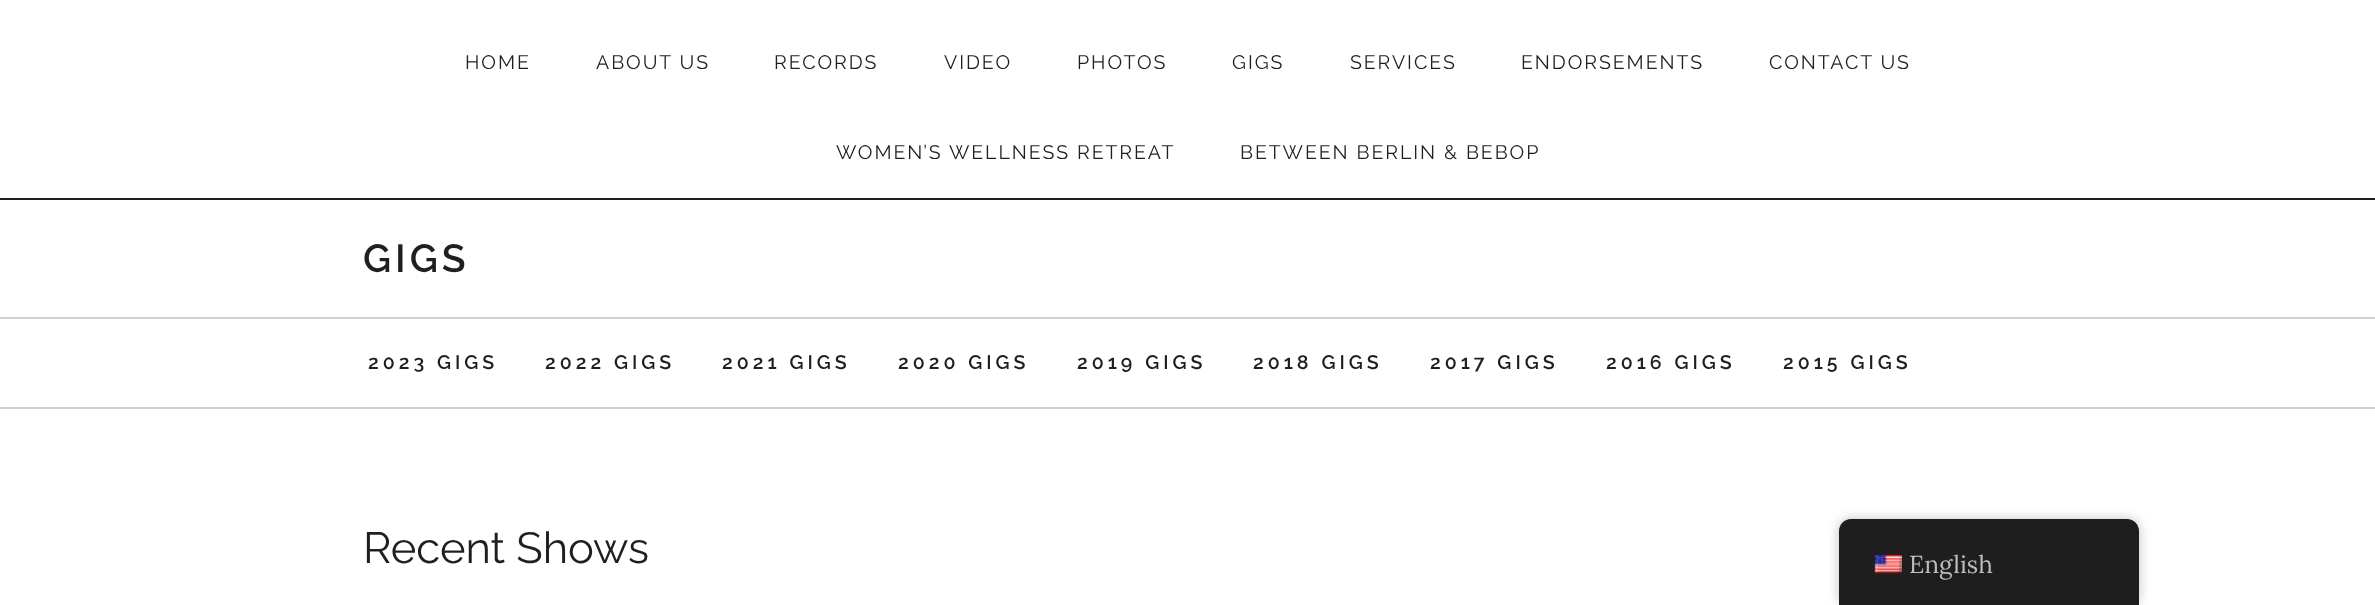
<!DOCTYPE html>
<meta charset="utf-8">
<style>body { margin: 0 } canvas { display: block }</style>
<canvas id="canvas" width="2375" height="605"></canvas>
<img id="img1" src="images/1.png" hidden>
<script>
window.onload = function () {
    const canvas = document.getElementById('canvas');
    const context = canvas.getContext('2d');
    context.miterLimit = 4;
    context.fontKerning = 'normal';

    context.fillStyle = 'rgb(255, 255, 255)';
    context.fillRect(0, 0, 2375, 605);
    context.fillStyle = 'rgb(31, 31, 31)';
    context.fillRect(0, 198, 2375, 2);
    context.fillStyle = 'rgb(209, 209, 209)';
    context.fillRect(0, 317, 2375, 2);
    context.fillRect(0, 407, 2375, 2);
    context.fillStyle = 'rgba(0, 0, 0, 0.25)';
    context.filter = 'blur(6px)';
    context.beginPath();
    context.roundRect(1839, 519, 300, 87, 12);
    context.fill();
    context.filter = 'none';
    context.fillStyle = 'rgb(30, 30, 30)';
    context.beginPath();
    context.moveTo(1851, 519);
    context.lineTo(2127, 519);
    context.bezierCurveTo(2133.5, 519, 2139, 524.5, 2139, 531);
    context.lineTo(2139, 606);
    context.lineTo(1839, 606);
    context.lineTo(1839, 531);
    context.bezierCurveTo(1839, 524.5, 1844.5, 519, 1851, 519);
    context.closePath();
    context.fill();
    context.drawImage(document.getElementById('img1'), 1874, 555, 28, 19);
    context.letterSpacing = '1.95px';
    context.font = '19.5px Raleway';
    context.fillStyle = 'rgb(31, 31, 31)';
    context.fillText('HOME', 465, 69);
    context.fillText('ABOUT US', 596, 69);
    context.fillText('RECORDS', 774, 69);
    context.fillText('VIDEO', 944, 69);
    context.fillText('PHOTOS', 1077, 69);
    context.fillText('GIGS', 1232, 69);
    context.fillText('SERVICES', 1350, 69);
    context.fillText('ENDORSEMENTS', 1521, 69);
    context.fillText('CONTACT US', 1769, 69);
    context.fillText('WOMEN’S WELLNESS RETREAT', 836, 159);
    context.fillText('BETWEEN BERLIN & BEBOP', 1240, 159);
    context.letterSpacing = '4px';
    context.font = '600 39px Raleway';
    context.fillText('GIGS', 363, 272);
    context.font = '600 19.5px Raleway';
    context.fillText('2023 GIGS', 368, 369);
    context.fillText('2022 GIGS', 545, 369);
    context.fillText('2021 GIGS', 722, 369);
    context.fillText('2020 GIGS', 898, 369);
    context.fillText('2019 GIGS', 1077, 369);
    context.fillText('2018 GIGS', 1253, 369);
    context.fillText('2017 GIGS', 1430, 369);
    context.fillText('2016 GIGS', 1606, 369);
    context.fillText('2015 GIGS', 1783, 369);
    context.letterSpacing = '0px';
    context.font = '43.5px Raleway';
    context.fillText('Recent Shows', 363, 563);
    context.font = '24.5px Lora';
    context.fillStyle = 'rgb(189, 189, 189)';
    context.fillText('English', 1909, 573);
};
</script>
